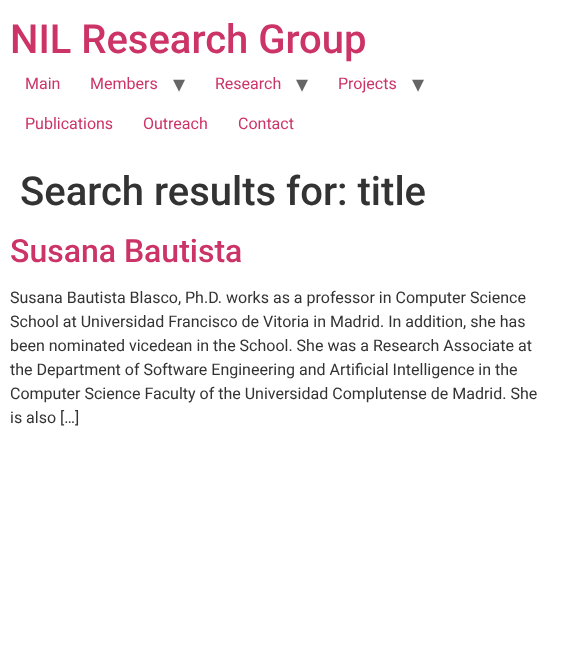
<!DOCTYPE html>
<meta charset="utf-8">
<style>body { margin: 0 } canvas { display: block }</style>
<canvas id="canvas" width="563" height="664"></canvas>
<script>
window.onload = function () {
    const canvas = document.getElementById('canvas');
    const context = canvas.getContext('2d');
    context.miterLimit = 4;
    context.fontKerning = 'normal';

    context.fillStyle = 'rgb(255, 255, 255)';
    context.fillRect(0, 0, 563, 664);
    context.font = '500 40px Roboto';
    context.fillStyle = 'rgb(204, 51, 102)';
    context.fillText('NIL Research Group', 10, 53);
    context.font = '16px Roboto';
    context.fillText('Main', 25, 89);
    context.fillText('Members', 90, 89);
    context.font = '24px DejaVu Sans';
    context.fillStyle = 'rgb(102, 102, 102)';
    context.fillText('▾', 173, 92);
    context.font = '16px Roboto';
    context.fillStyle = 'rgb(204, 51, 102)';
    context.fillText('Research', 215, 89);
    context.font = '24px DejaVu Sans';
    context.fillStyle = 'rgb(102, 102, 102)';
    context.fillText('▾', 296, 92);
    context.font = '16px Roboto';
    context.fillStyle = 'rgb(204, 51, 102)';
    context.fillText('Projects', 338, 89);
    context.font = '24px DejaVu Sans';
    context.fillStyle = 'rgb(102, 102, 102)';
    context.fillText('▾', 412, 92);
    context.font = '16px Roboto';
    context.fillStyle = 'rgb(204, 51, 102)';
    context.fillText('Publications', 25, 129);
    context.fillText('Outreach', 143, 129);
    context.fillText('Contact', 238, 129);
    context.font = '500 40px Roboto';
    context.fillStyle = 'rgb(51, 51, 51)';
    context.fillText('Search results for: title', 20, 205);
    context.font = '500 32px Roboto';
    context.fillStyle = 'rgb(204, 51, 102)';
    context.fillText('Susana Bautista', 10, 262);
    context.font = '16px Roboto';
    context.fillStyle = 'rgb(51, 51, 51)';
    context.fillText('Susana Bautista Blasco, Ph.D. works as a professor in Computer Science', 10, 303);
    context.fillText('School at Universidad Francisco de Vitoria in Madrid. In addition, she has', 10, 327);
    context.fillText('been nominated vicedean in the School. She was a Research Associate at', 10, 351);
    context.fillText('the Department of Software Engineering and Artificial Intelligence in the', 10, 375);
    context.fillText('Computer Science Faculty of the Universidad Complutense de Madrid. She', 10, 399);
    context.fillText('is also […]', 10, 423);
};
</script>
